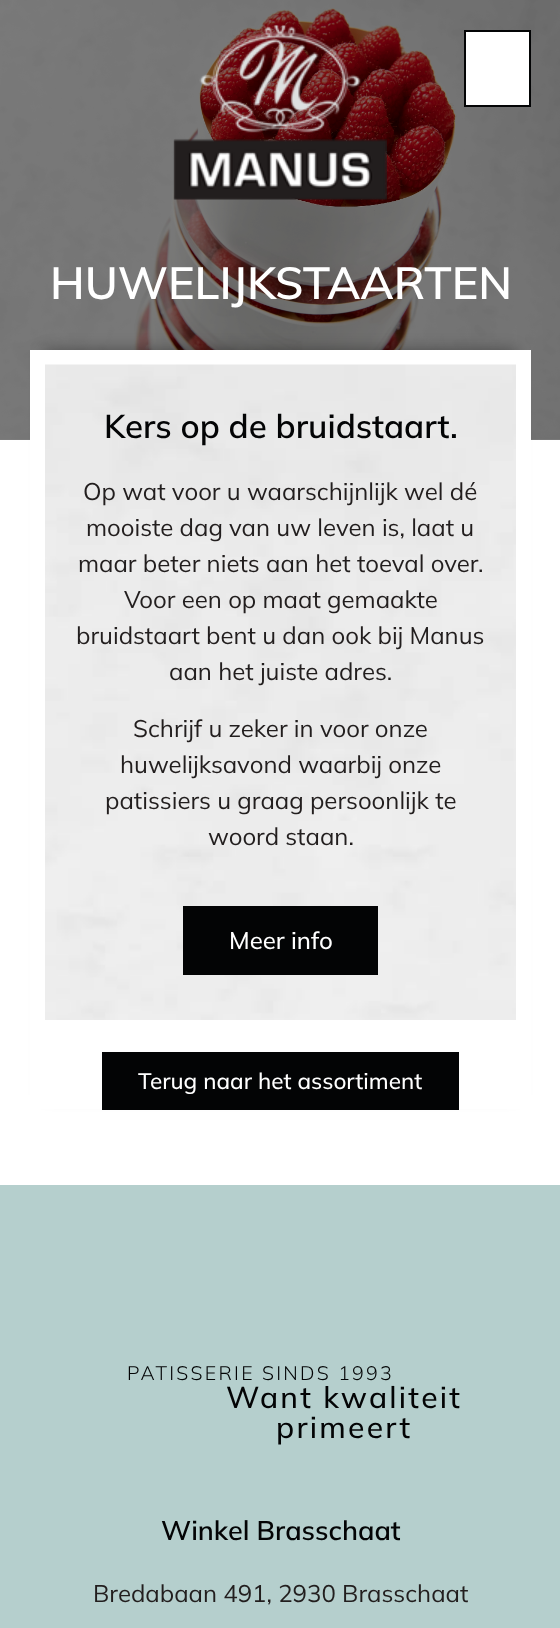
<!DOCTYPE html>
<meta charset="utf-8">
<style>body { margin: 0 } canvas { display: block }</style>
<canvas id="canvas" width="560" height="1628"></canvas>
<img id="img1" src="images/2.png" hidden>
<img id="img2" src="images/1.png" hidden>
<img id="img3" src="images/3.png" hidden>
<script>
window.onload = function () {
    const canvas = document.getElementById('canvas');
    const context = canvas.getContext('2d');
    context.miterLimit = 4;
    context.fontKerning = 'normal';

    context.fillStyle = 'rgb(255, 255, 255)';
    context.fillRect(0, 0, 560, 1628);
    context.fillStyle = 'rgb(128, 128, 128)';
    context.fillRect(0, 439, 560, 1);
    context.drawImage(document.getElementById('img1'), 0, 0, 560, 440);
    context.drawImage(document.getElementById('img2'), 173, 25, 214, 175);
    context.fillStyle = 'rgb(255, 255, 255)';
    context.beginPath();
    context.rect(465, 31, 65, 75);
    context.fill();
    context.strokeStyle = 'rgb(3, 4, 5)';
    context.lineWidth = 2;
    context.stroke();
    context.fillStyle = 'rgba(0, 0, 0, 0.35)';
    context.filter = 'blur(7.5px)';
    context.beginPath();
    context.rect(45, 350, 471, 745);
    context.fill();
    context.filter = 'none';
    context.fillStyle = 'rgb(255, 255, 255)';
    context.fillRect(30, 350, 501, 759);
    context.drawImage(document.getElementById('img3'), 45, 364, 471, 656);
    context.fillStyle = 'rgb(3, 4, 5)';
    context.fillRect(183, 906, 195, 69);
    context.fillRect(102, 1052, 357, 58);
    context.fillStyle = 'rgb(181, 207, 205)';
    context.fillRect(0, 1185, 560, 443);
    context.font = '600 45px Mulish';
    context.fillStyle = 'rgb(255, 255, 255)';
    context.fillText('HUWELIJKSTAARTEN', 50, 299);
    context.font = '600 33px Mulish';
    context.fillStyle = 'rgb(3, 4, 5)';
    context.fillText('Kers op de bruidstaart.', 104, 438);
    context.font = '24px Mulish';
    context.fillStyle = 'rgb(34, 30, 30)';
    context.fillText('Op wat voor u waarschijnlijk wel dé', 83, 500);
    context.fillText('mooiste dag van uw leven is, laat u', 86, 536);
    context.fillText('maar beter niets aan het toeval over.', 78, 572);
    context.fillText('Voor een op maat gemaakte', 124, 608);
    context.fillText('bruidstaart bent u dan ook bij Manus', 76, 644);
    context.fillText('aan het juiste adres.', 169, 680);
    context.fillText('Schrijf u zeker in voor onze', 133, 737);
    context.fillText('huwelijksavond waarbij onze', 120, 773);
    context.fillText('patissiers u graag persoonlijk te', 105, 809);
    context.fillText('woord staan.', 208, 845);
    context.font = '500 24px Mulish';
    context.fillStyle = 'rgb(255, 255, 255)';
    context.fillText('Meer info', 229, 949);
    context.font = '500 22.5px Mulish';
    context.fillText('Terug naar het assortiment', 138, 1089);
    context.letterSpacing = '2.25px';
    context.font = '300 19.5px Mulish';
    context.fillStyle = 'rgb(3, 4, 5)';
    context.fillText('PATISSERIE SINDS 1993', 127, 1380);
    context.font = '500 30px Mulish';
    context.fillText('Want kwaliteit', 226, 1408);
    context.fillText('primeert', 276, 1438);
    context.letterSpacing = '0px';
    context.font = '600 27px Mulish';
    context.fillText('Winkel Brasschaat', 161, 1540);
    context.font = '24px Mulish';
    context.fillStyle = 'rgb(34, 30, 30)';
    context.fillText('Bredabaan 491, 2930 Brasschaat', 93, 1602);
};
</script>
